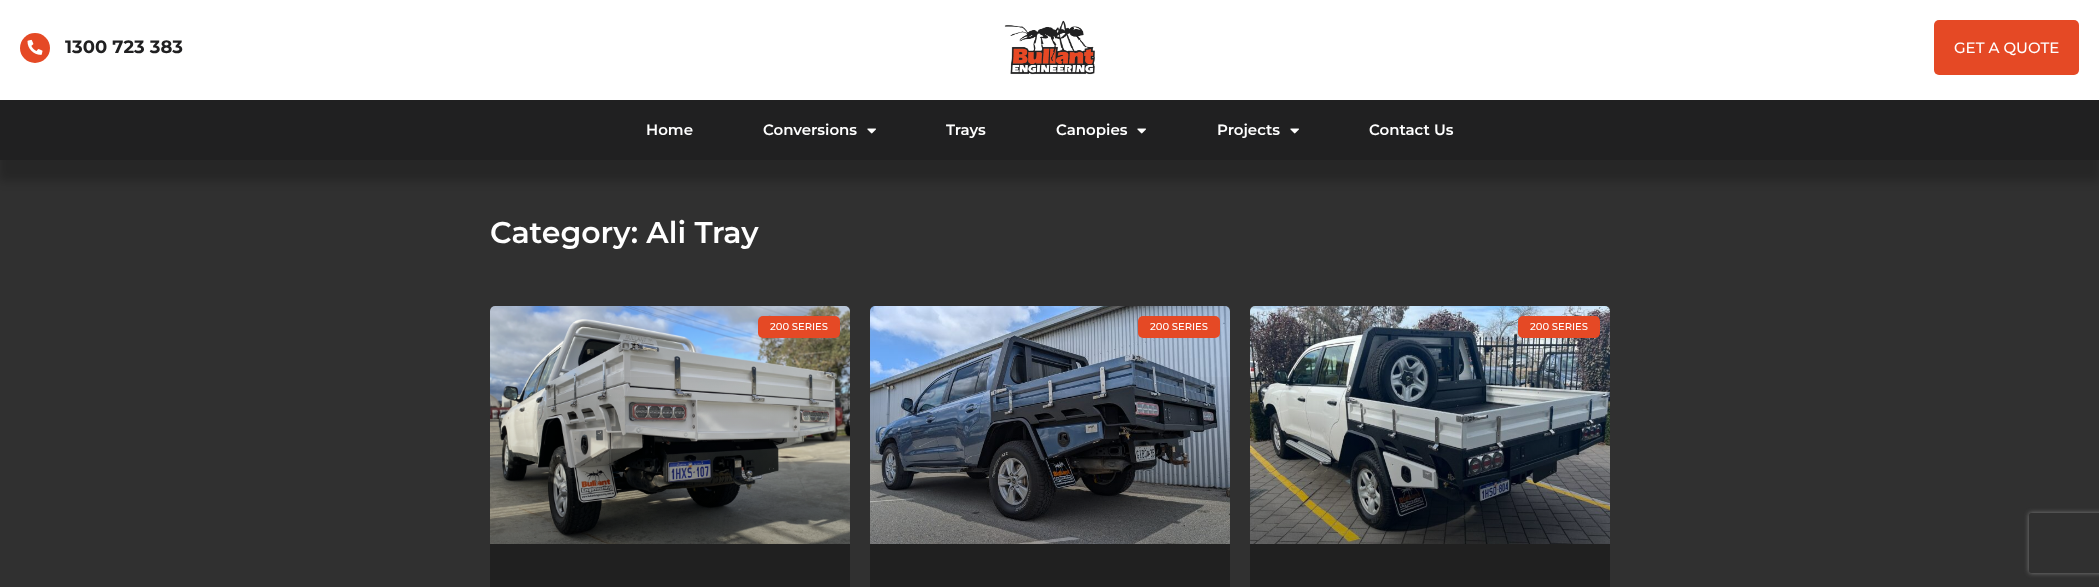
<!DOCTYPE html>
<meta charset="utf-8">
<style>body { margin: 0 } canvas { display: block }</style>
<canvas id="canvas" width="2099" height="587"></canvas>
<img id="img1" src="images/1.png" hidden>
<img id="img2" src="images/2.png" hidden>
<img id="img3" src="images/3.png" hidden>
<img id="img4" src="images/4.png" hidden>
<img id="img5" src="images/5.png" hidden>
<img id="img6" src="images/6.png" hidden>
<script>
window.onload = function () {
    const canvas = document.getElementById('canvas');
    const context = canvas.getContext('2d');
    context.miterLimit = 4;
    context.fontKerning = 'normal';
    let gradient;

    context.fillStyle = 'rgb(255, 255, 255)';
    context.fillRect(0, 0, 2099, 587);
    context.fillStyle = 'rgb(229, 73, 37)';
    context.beginPath();
    context.arc(35, 48, 15, 0, 2 * Math.PI);
    context.fill();
    context.drawImage(document.getElementById('img1'), 27, 39, 16, 16);
    context.drawImage(document.getElementById('img2'), 1004, 20, 91, 55);
    context.beginPath();
    context.roundRect(1934, 20, 145, 55, 5);
    context.fill();
    context.fillStyle = 'rgb(48, 48, 48)';
    context.fillRect(0, 160, 2099, 427);
    context.fillStyle = 'rgba(0, 0, 0, 0.2)';
    context.filter = 'blur(5px)';
    context.beginPath();
    context.rect(-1, 119, 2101, 62);
    context.fill();
    context.filter = 'none';
    context.fillStyle = 'rgb(32, 32, 33)';
    context.fillRect(0, 100, 2099, 60);
    context.drawImage(document.getElementById('img3'), 867, 128, 9, 6);
    context.drawImage(document.getElementById('img3'), 1137, 128, 9, 6);
    context.drawImage(document.getElementById('img3'), 1290, 128, 9, 6);
    context.fillStyle = 'rgb(32, 32, 32)';
    context.beginPath();
    context.roundRect(490, 306, 360, 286, 5);
    context.fill();
    context.drawImage(document.getElementById('img4'), 490, 306, 360, 238);
    gradient = context.createLinearGradient(670, 544, 670, 306);
    gradient.addColorStop(0, 'rgba(0, 0, 0, 0.35)');
    gradient.addColorStop(0.75, 'rgba(0, 0, 0, 0)');
    context.fillStyle = gradient;
    context.fillRect(490, 377, 360, 167);
    context.fillStyle = 'rgb(229, 73, 37)';
    context.beginPath();
    context.roundRect(758, 316, 82, 22, 5);
    context.fill();
    context.fillStyle = 'rgb(32, 32, 32)';
    context.beginPath();
    context.roundRect(870, 306, 360, 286, 5);
    context.fill();
    context.drawImage(document.getElementById('img5'), 870, 306, 360, 238);
    gradient = context.createLinearGradient(1050, 544, 1050, 306);
    gradient.addColorStop(0, 'rgba(0, 0, 0, 0.35)');
    gradient.addColorStop(0.75, 'rgba(0, 0, 0, 0)');
    context.fillStyle = gradient;
    context.fillRect(870, 377, 360, 167);
    context.fillStyle = 'rgb(229, 73, 37)';
    context.beginPath();
    context.roundRect(1138, 316, 82, 22, 5);
    context.fill();
    context.fillStyle = 'rgb(32, 32, 32)';
    context.beginPath();
    context.roundRect(1250, 306, 360, 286, 5);
    context.fill();
    context.drawImage(document.getElementById('img6'), 1250, 306, 360, 238);
    gradient = context.createLinearGradient(1430, 544, 1430, 306);
    gradient.addColorStop(0, 'rgba(0, 0, 0, 0.35)');
    gradient.addColorStop(0.75, 'rgba(0, 0, 0, 0)');
    context.fillStyle = gradient;
    context.fillRect(1250, 377, 360, 167);
    context.fillStyle = 'rgb(229, 73, 37)';
    context.beginPath();
    context.roundRect(1518, 316, 82, 22, 5);
    context.fill();
    context.save();
    context.beginPath();
    context.moveTo(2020, 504);
    context.lineTo(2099, 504);
    context.lineTo(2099, 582);
    context.lineTo(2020, 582);
    context.closePath();
    context.moveTo(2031, 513);
    context.lineTo(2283, 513);
    context.bezierCurveTo(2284, 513, 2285, 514, 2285, 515);
    context.lineTo(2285, 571);
    context.bezierCurveTo(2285, 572, 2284, 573, 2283, 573);
    context.lineTo(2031, 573);
    context.bezierCurveTo(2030, 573, 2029, 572, 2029, 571);
    context.lineTo(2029, 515);
    context.bezierCurveTo(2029, 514, 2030, 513, 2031, 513);
    context.closePath();
    context.clip('evenodd');
    context.fillStyle = 'rgb(128, 128, 128)';
    context.filter = 'blur(2.5px)';
    context.beginPath();
    context.roundRect(2029, 513, 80, 60, 2);
    context.fill();
    context.filter = 'none';
    context.restore();
    context.font = 'bold 18px Montserrat';
    context.fillStyle = 'rgb(32, 32, 33)';
    context.fillText('1300 723 383', 65, 53);
    context.font = '500 15px Montserrat';
    context.fillStyle = 'rgb(255, 255, 255)';
    context.fillText('GET A QUOTE', 1954, 53);
    context.font = '600 15px Montserrat';
    context.fillText('Home', 646, 135);
    context.fillText('Conversions', 763, 135);
    context.fillText('Trays', 946, 135);
    context.fillText('Canopies', 1056, 135);
    context.fillText('Projects', 1217, 135);
    context.fillText('Contact Us', 1369, 135);
    context.font = '600 30px Montserrat';
    context.fillText('Category: Ali Tray', 490, 243);
    context.font = '500 10px Montserrat';
    context.fillText('200 SERIES', 770, 330);
    context.fillText('200 SERIES', 1150, 330);
    context.fillText('200 SERIES', 1530, 330);
};
</script>
